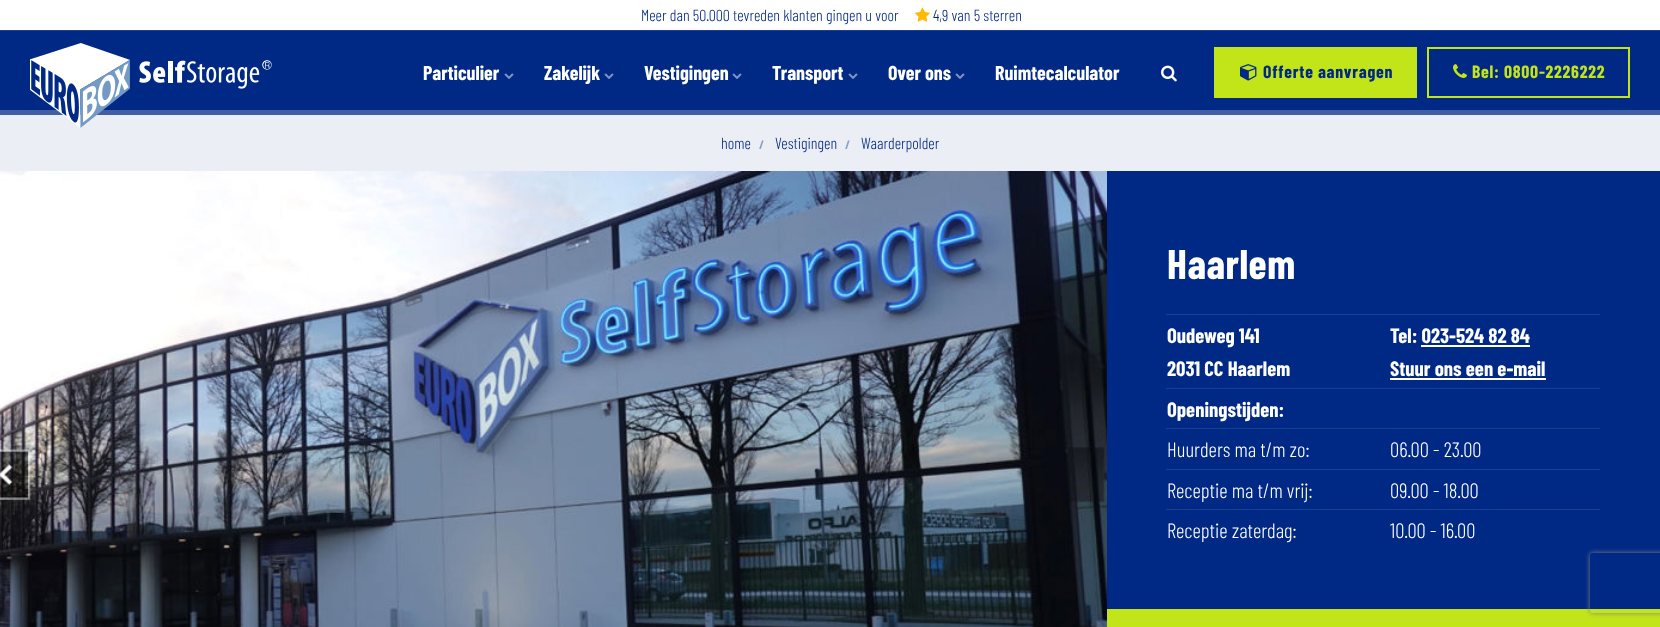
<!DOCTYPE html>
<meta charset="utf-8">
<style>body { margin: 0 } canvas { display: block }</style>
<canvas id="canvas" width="1660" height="627"></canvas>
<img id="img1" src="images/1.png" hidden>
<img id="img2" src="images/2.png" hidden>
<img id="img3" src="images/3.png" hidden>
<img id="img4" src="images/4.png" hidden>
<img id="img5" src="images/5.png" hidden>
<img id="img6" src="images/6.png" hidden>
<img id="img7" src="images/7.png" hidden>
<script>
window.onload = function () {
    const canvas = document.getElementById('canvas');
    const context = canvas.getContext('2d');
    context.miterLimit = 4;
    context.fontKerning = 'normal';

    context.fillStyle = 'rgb(255, 255, 255)';
    context.fillRect(0, 0, 1660, 627);
    context.strokeStyle = 'rgb(26, 62, 145)';
    context.strokeRect(-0.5, -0.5, 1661, 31);
    context.drawImage(document.getElementById('img1'), 915, 7, 15, 15);
    context.fillStyle = 'rgb(0, 41, 133)';
    context.fillRect(0, 31, 1660, 79);
    context.fillStyle = 'rgb(64, 95, 164)';
    context.fillRect(0, 110, 1660, 5);
    context.fillStyle = 'rgb(235, 238, 245)';
    context.fillRect(0, 115, 1660, 56);
    context.drawImage(document.getElementById('img2'), 30, 43, 242, 85);
    context.drawImage(document.getElementById('img3'), 504, 73, 10, 6);
    context.drawImage(document.getElementById('img3'), 604, 73, 10, 6);
    context.drawImage(document.getElementById('img3'), 732, 73, 10, 6);
    context.drawImage(document.getElementById('img3'), 848, 73, 10, 6);
    context.drawImage(document.getElementById('img3'), 955, 73, 10, 6);
    context.drawImage(document.getElementById('img4'), 1161, 65, 16, 17);
    context.fillStyle = 'rgb(194, 229, 25)';
    context.fillRect(1214, 47, 203, 51);
    context.drawImage(document.getElementById('img5'), 1240, 64, 17, 17);
    context.strokeStyle = 'rgb(194, 229, 25)';
    context.lineWidth = 2;
    context.strokeRect(1428, 48, 201, 49);
    context.drawImage(document.getElementById('img6'), 1453, 64, 14, 14);
    context.fillStyle = 'rgb(0, 41, 133)';
    context.fillRect(1107, 171, 553, 438);
    context.drawImage(document.getElementById('img7'), 0, 171, 1107, 456);
    context.fillStyle = 'rgb(26, 62, 145)';
    context.fillRect(1166, 314, 434, 1);
    context.fillStyle = 'rgb(255, 255, 255)';
    context.fillRect(1421, 345, 109, 2);
    context.fillRect(1390, 378, 156, 2);
    context.fillStyle = 'rgb(26, 62, 145)';
    context.fillRect(1166, 388, 434, 1);
    context.fillRect(1166, 428, 434, 1);
    context.fillRect(1166, 469, 434, 1);
    context.fillRect(1166, 509, 434, 1);
    context.fillStyle = 'rgb(194, 229, 25)';
    context.fillRect(1107, 609, 553, 18);
    context.save();
    context.beginPath();
    context.moveTo(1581, 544);
    context.lineTo(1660, 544);
    context.lineTo(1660, 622);
    context.lineTo(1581, 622);
    context.closePath();
    context.moveTo(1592, 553);
    context.lineTo(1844, 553);
    context.bezierCurveTo(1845, 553, 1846, 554, 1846, 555);
    context.lineTo(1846, 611);
    context.bezierCurveTo(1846, 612, 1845, 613, 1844, 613);
    context.lineTo(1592, 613);
    context.bezierCurveTo(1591, 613, 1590, 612, 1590, 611);
    context.lineTo(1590, 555);
    context.bezierCurveTo(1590, 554, 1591, 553, 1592, 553);
    context.closePath();
    context.clip('evenodd');
    context.fillStyle = 'rgb(128, 128, 128)';
    context.filter = 'blur(2.5px)';
    context.beginPath();
    context.roundRect(1590, 553, 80, 60, 2);
    context.fill();
    context.filter = 'none';
    context.restore();
    context.font = '300 16px Barlow Condensed';
    context.fillStyle = 'rgb(0, 41, 133)';
    context.fillText('Meer dan 50.000 tevreden klanten gingen u voor', 641, 21);
    context.fillText('4,9 van 5 sterren', 933, 21);
    context.font = 'bold 20px Barlow Condensed';
    context.fillStyle = 'rgb(255, 255, 255)';
    context.fillText('Particulier', 423, 80);
    context.fillText('Zakelijk', 544, 80);
    context.fillText('Vestigingen', 644, 80);
    context.fillText('Transport', 772, 80);
    context.fillText('Over ons', 888, 80);
    context.fillText('Ruimtecalculator', 995, 80);
    context.letterSpacing = '0.75px';
    context.font = 'bold 17.75px Barlow Condensed';
    context.fillStyle = 'rgb(0, 41, 133)';
    context.fillText('Offerte aanvragen', 1263, 78);
    context.fillStyle = 'rgb(194, 229, 25)';
    context.fillText('Bel: 0800-2226222', 1472, 78);
    context.letterSpacing = '0px';
    context.font = '300 16px Barlow Condensed';
    context.fillStyle = 'rgb(0, 41, 133)';
    context.fillText('home', 721, 149);
    context.font = 'bold 12px Barlow Condensed';
    context.fillStyle = 'rgb(141, 159, 200)';
    context.fillText('/', 759, 149);
    context.font = '300 16px Barlow Condensed';
    context.fillStyle = 'rgb(0, 41, 133)';
    context.fillText('Vestigingen', 775, 149);
    context.font = 'bold 12px Barlow Condensed';
    context.fillStyle = 'rgb(141, 159, 200)';
    context.fillText('/', 845, 149);
    context.font = '300 16px Barlow Condensed';
    context.fillStyle = 'rgb(0, 41, 133)';
    context.fillText('Waarderpolder', 861, 149);
    context.letterSpacing = '0.5px';
    context.font = 'bold 41.5px Barlow Condensed';
    context.fillStyle = 'rgb(255, 255, 255)';
    context.fillText('Haarlem', 1167, 279);
    context.letterSpacing = '0px';
    context.font = 'bold 20.75px Barlow Condensed';
    context.fillText('Oudeweg 141', 1167, 343);
    context.fillText('2031 CC Haarlem', 1167, 376);
    context.fillText('Tel: 023-524 82 84', 1390, 343);
    context.fillText('Stuur ons een e-mail', 1390, 376);
    context.fillText('Openingstijden:', 1167, 417);
    context.font = '300 20.75px Barlow Condensed';
    context.fillText('Huurders ma t/m zo:', 1167, 457);
    context.fillText('06.00 - 23.00', 1390, 457);
    context.fillText('Receptie ma t/m vrij:', 1167, 498);
    context.fillText('09.00 - 18.00', 1390, 498);
    context.fillText('Receptie zaterdag:', 1167, 538);
    context.fillText('10.00 - 16.00', 1390, 538);
};
</script>
